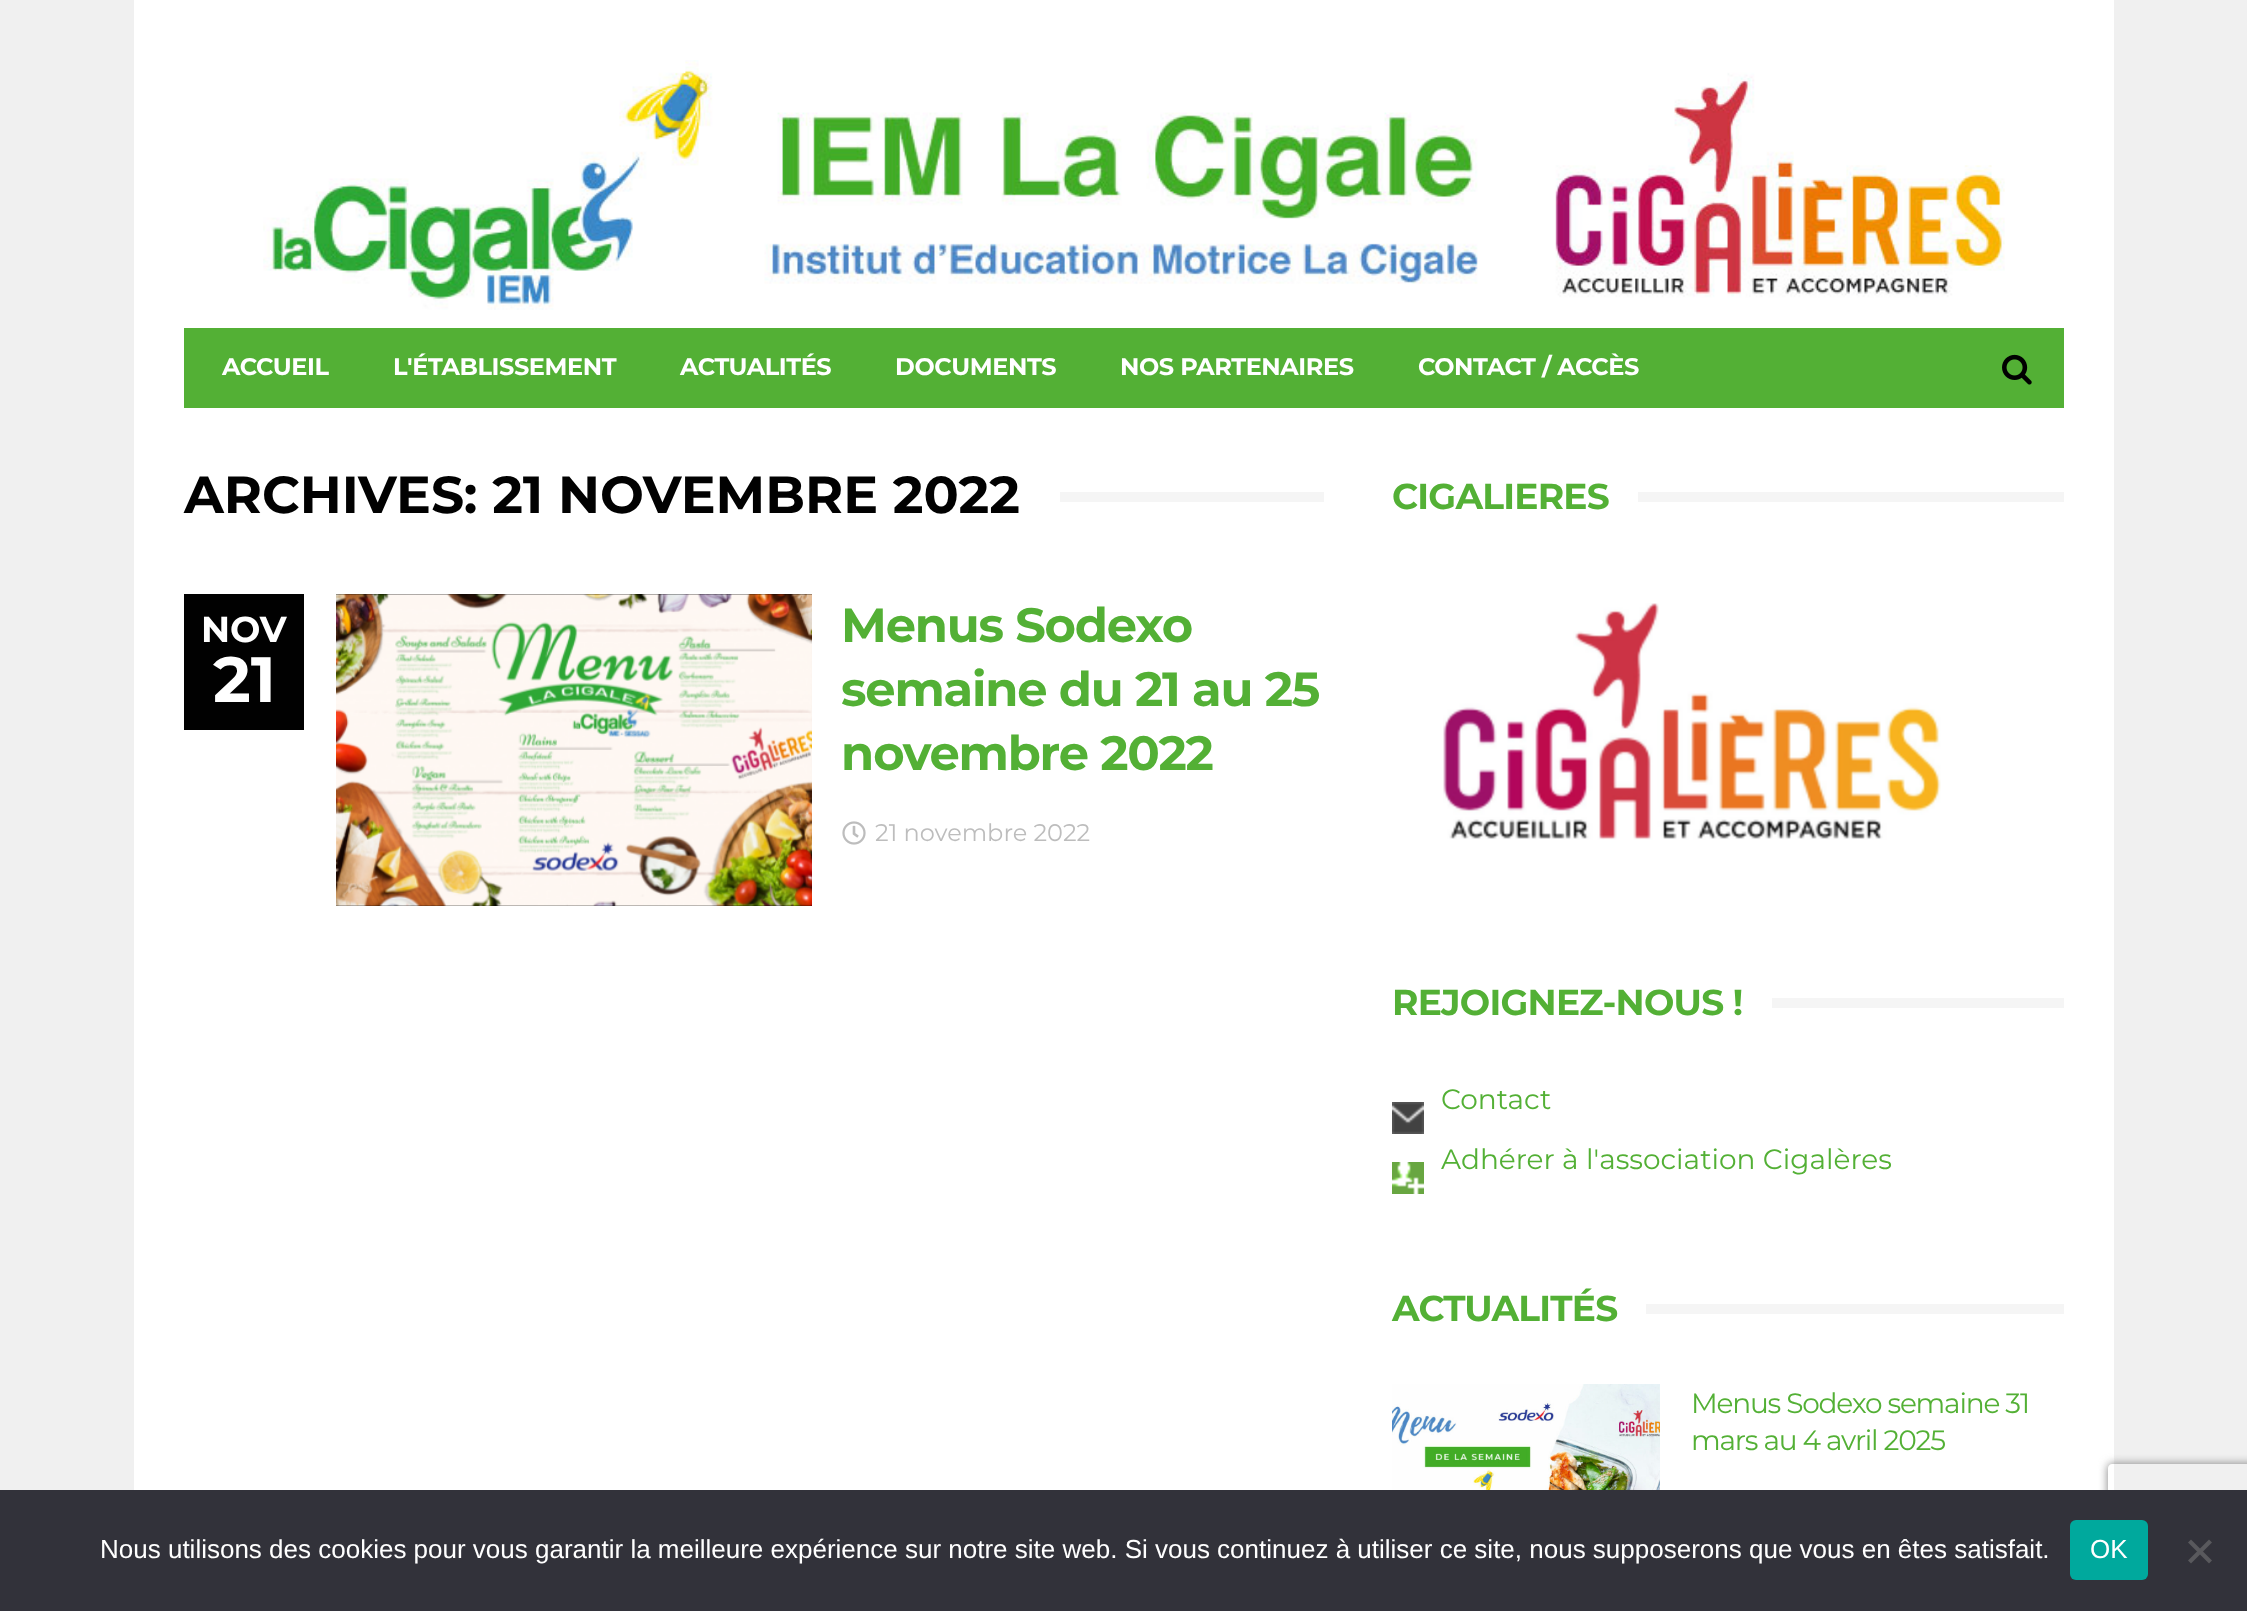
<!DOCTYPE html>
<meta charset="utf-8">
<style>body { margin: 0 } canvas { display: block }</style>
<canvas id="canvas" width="2247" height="1611"></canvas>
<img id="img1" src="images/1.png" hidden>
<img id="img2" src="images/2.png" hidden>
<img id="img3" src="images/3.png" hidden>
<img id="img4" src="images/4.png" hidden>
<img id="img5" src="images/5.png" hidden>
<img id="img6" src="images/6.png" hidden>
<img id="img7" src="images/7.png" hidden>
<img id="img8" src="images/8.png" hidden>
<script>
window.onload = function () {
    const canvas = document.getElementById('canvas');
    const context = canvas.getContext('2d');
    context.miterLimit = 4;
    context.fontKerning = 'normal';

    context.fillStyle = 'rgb(240, 240, 240)';
    context.fillRect(0, 0, 2247, 1611);
    context.fillStyle = 'rgb(255, 255, 255)';
    context.fillRect(134, 0, 1980, 1490);
    context.drawImage(document.getElementById('img1'), 263, 60, 1742, 250);
    context.fillStyle = 'rgb(83, 176, 53)';
    context.fillRect(184, 328, 1880, 80);
    context.drawImage(document.getElementById('img2'), 2002, 354, 30, 31);
    context.fillStyle = 'rgb(245, 245, 245)';
    context.fillRect(1060, 492, 264, 10);
    context.fillStyle = 'rgb(1, 1, 1)';
    context.fillRect(184, 594, 120, 136);
    context.fillRect(336, 594, 476, 312);
    context.drawImage(document.getElementById('img3'), 336, 594, 476, 312);
    context.drawImage(document.getElementById('img4'), 842, 821, 24, 24);
    context.fillStyle = 'rgb(245, 245, 245)';
    context.fillRect(1638, 492, 426, 10);
    context.drawImage(document.getElementById('img5'), 1443, 603, 498, 237);
    context.fillRect(1772, 998, 292, 10);
    context.drawImage(document.getElementById('img6'), 1392, 1102, 32, 32);
    context.drawImage(document.getElementById('img7'), 1392, 1162, 32, 32);
    context.fillRect(1646, 1304, 418, 10);
    context.drawImage(document.getElementById('img8'), 1392, 1384, 268, 106);
    context.save();
    context.beginPath();
    context.moveTo(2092, 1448);
    context.lineTo(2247, 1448);
    context.lineTo(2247, 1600);
    context.lineTo(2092, 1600);
    context.closePath();
    context.moveTo(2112, 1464);
    context.lineTo(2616, 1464);
    context.bezierCurveTo(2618, 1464, 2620, 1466, 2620, 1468);
    context.lineTo(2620, 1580);
    context.bezierCurveTo(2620, 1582, 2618, 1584, 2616, 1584);
    context.lineTo(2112, 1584);
    context.bezierCurveTo(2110, 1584, 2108, 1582, 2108, 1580);
    context.lineTo(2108, 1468);
    context.bezierCurveTo(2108, 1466, 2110, 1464, 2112, 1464);
    context.closePath();
    context.clip('evenodd');
    context.fillStyle = 'rgb(128, 128, 128)';
    context.filter = 'blur(5px)';
    context.beginPath();
    context.roundRect(2108, 1464, 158, 120, 4);
    context.fill();
    context.filter = 'none';
    context.restore();
    context.fillStyle = 'rgb(50, 50, 58)';
    context.fillRect(0, 1490, 2247, 121);
    context.fillStyle = 'rgb(0, 169, 157)';
    context.beginPath();
    context.roundRect(2070, 1520, 78, 60, 6);
    context.fill();
    context.fillStyle = 'rgb(89, 89, 93)';
    context.beginPath();
    context.moveTo(2209, 1539.5);
    context.lineTo(2212, 1542.5);
    context.lineTo(2191, 1563.5);
    context.lineTo(2188, 1560.5);
    context.closePath();
    context.fill();
    context.beginPath();
    context.moveTo(2188, 1542.5);
    context.lineTo(2191, 1539.5);
    context.lineTo(2212, 1560.5);
    context.lineTo(2209, 1563.5);
    context.closePath();
    context.fill();
    context.letterSpacing = '-0.4px';
    context.font = 'bold 24px Montserrat';
    context.fillStyle = 'rgb(255, 255, 255)';
    context.fillText('ACCUEIL', 222, 375);
    context.fillText('L\'ÉTABLISSEMENT', 393, 375);
    context.fillText('ACTUALITÉS', 680, 375);
    context.fillText('DOCUMENTS', 895, 375);
    context.fillText('NOS PARTENAIRES', 1120, 375);
    context.fillText('CONTACT / ACCÈS', 1418, 375);
    context.letterSpacing = '0px';
    context.font = 'bold 52px Montserrat';
    context.fillStyle = 'rgb(1, 1, 1)';
    context.fillText('ARCHIVES: 21 NOVEMBRE 2022', 184, 513);
    context.font = 'bold 36px Montserrat';
    context.fillStyle = 'rgb(255, 255, 255)';
    context.fillText('NOV', 201, 642);
    context.font = 'bold 64px Montserrat';
    context.fillText('21', 213, 702);
    context.letterSpacing = '-1.2px';
    context.font = 'bold 48px Montserrat';
    context.fillStyle = 'rgb(83, 176, 53)';
    context.fillText('Menus Sodexo', 841, 642);
    context.fillText('semaine du 21 au 25', 841, 706);
    context.fillText('novembre 2022', 841, 770);
    context.letterSpacing = '0px';
    context.font = '24px Montserrat';
    context.fillStyle = 'rgb(189, 189, 189)';
    context.fillText('21 novembre 2022', 875, 841);
    context.letterSpacing = '-0.75px';
    context.font = 'bold 36px Montserrat';
    context.fillStyle = 'rgb(83, 176, 53)';
    context.fillText('CIGALIERES', 1392, 509);
    context.fillText('REJOIGNEZ-NOUS !', 1392, 1015);
    context.letterSpacing = '0px';
    context.font = '28px Montserrat';
    context.fillText('Contact', 1441, 1109);
    context.fillText('Adhérer à l\'association Cigalères', 1441, 1169);
    context.letterSpacing = '-0.75px';
    context.font = 'bold 36px Montserrat';
    context.fillText('ACTUALITÉS', 1392, 1321);
    context.letterSpacing = '-1.2px';
    context.font = '28px Montserrat';
    context.fillText('Menus Sodexo semaine 31', 1691, 1413);
    context.fillText('mars au 4 avril 2025', 1691, 1450);
    context.letterSpacing = '0px';
    context.font = '26px Liberation Sans';
    context.fillStyle = 'rgb(255, 255, 255)';
    context.fillText('Nous utilisons des cookies pour vous garantir la meilleure expérience sur notre site web. Si vous continuez à utiliser ce site, nous supposerons que vous en êtes satisfait.', 100, 1558);
    context.fillText('OK', 2090, 1558);
};
</script>
